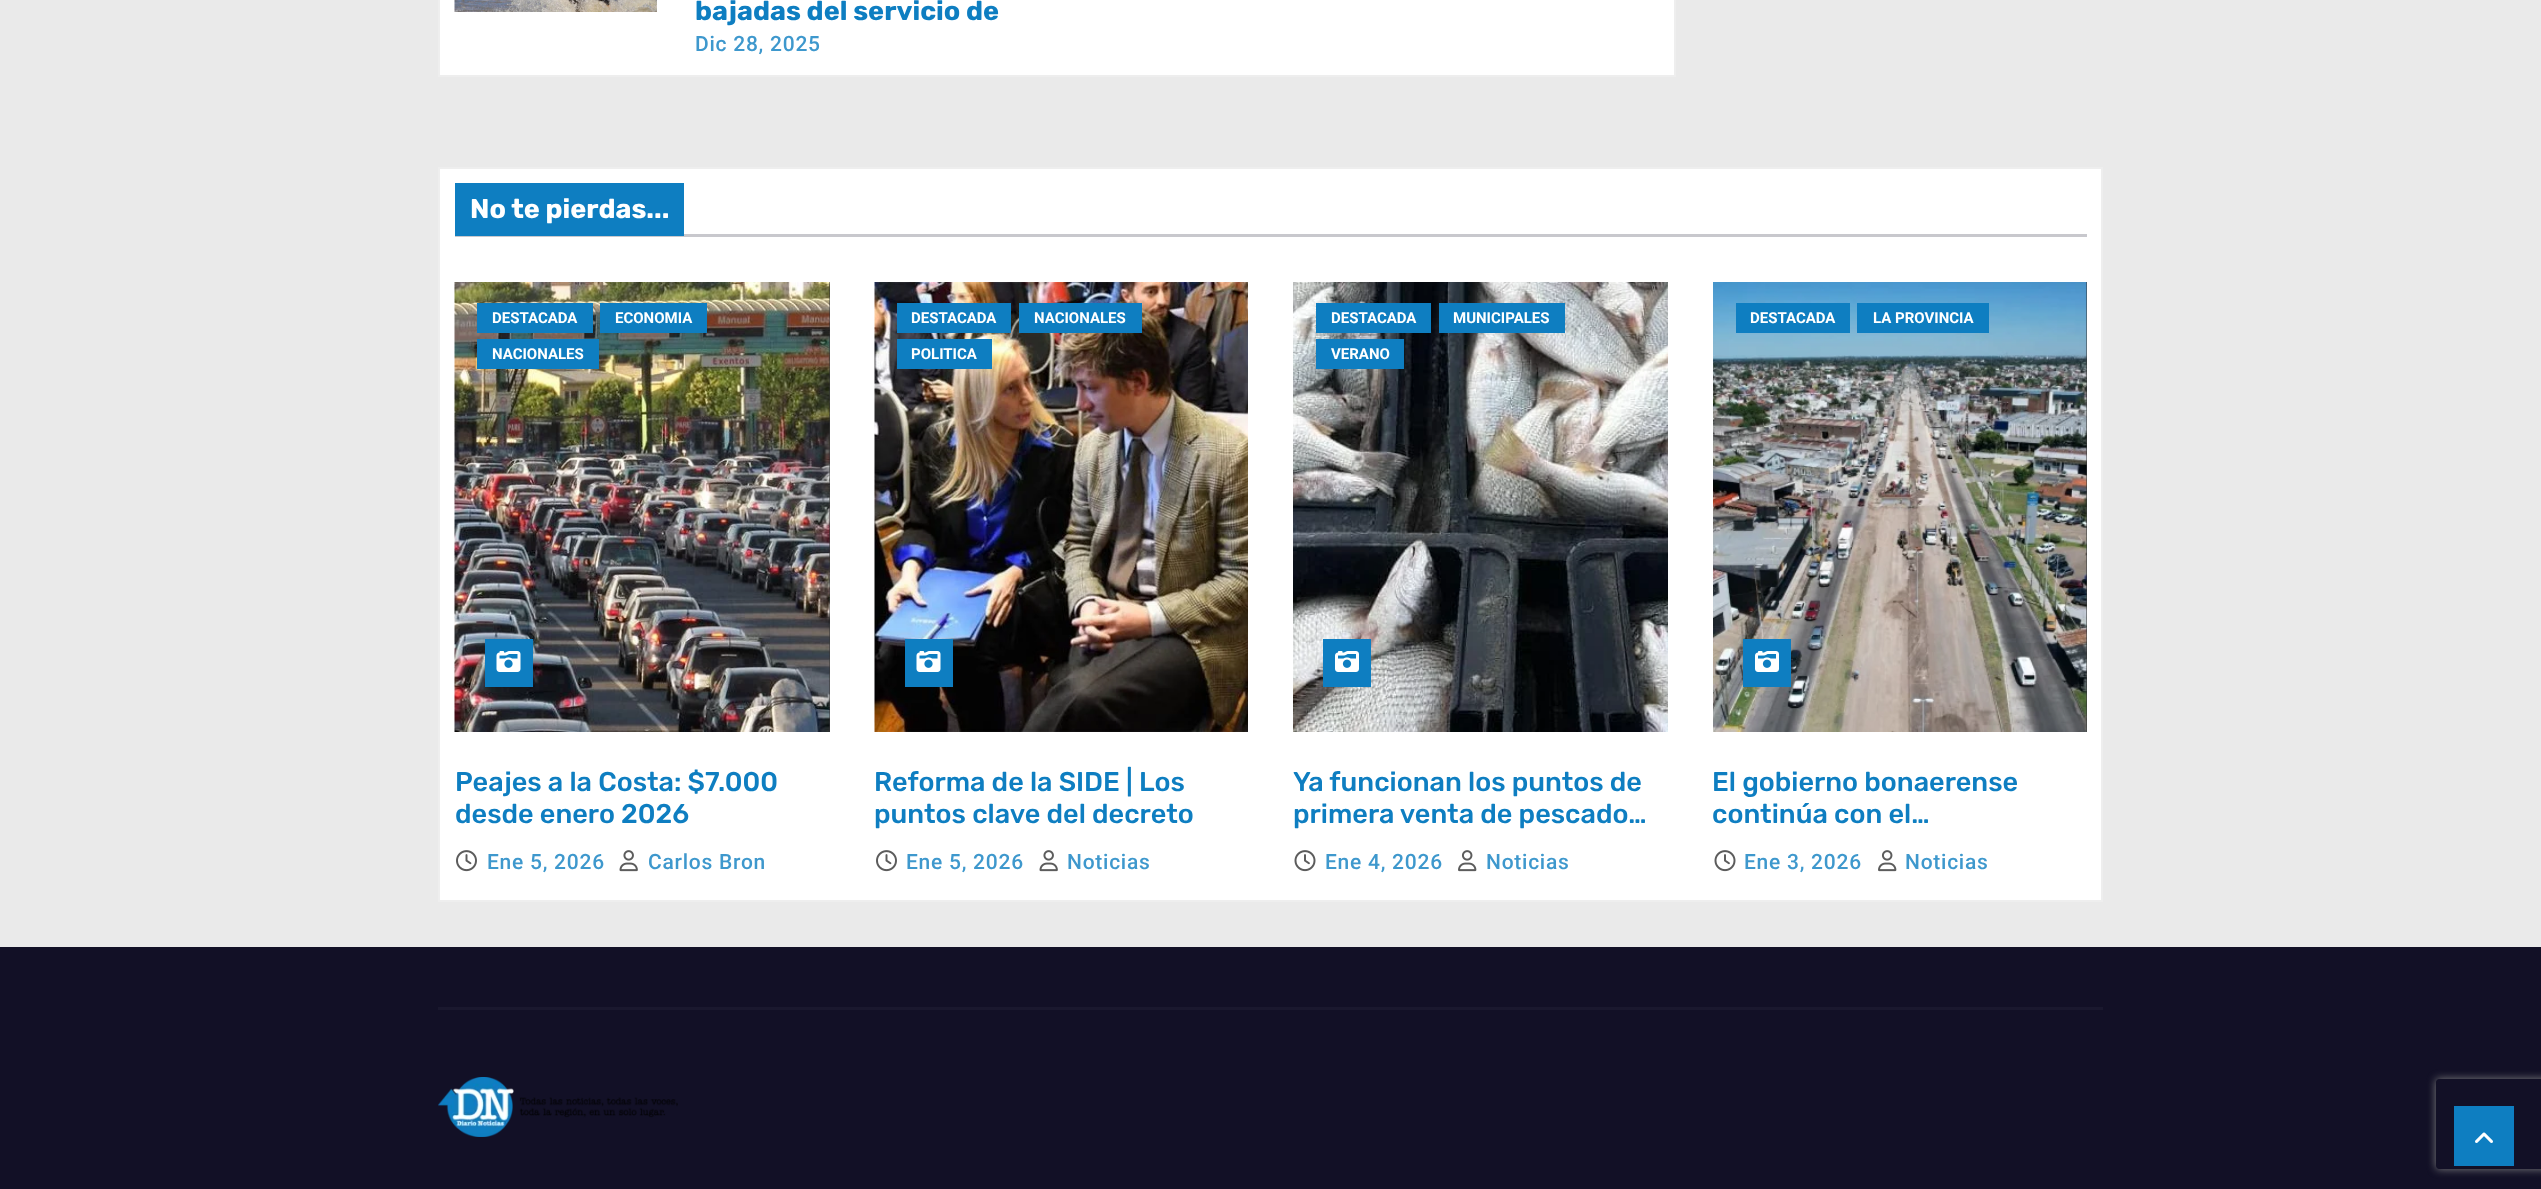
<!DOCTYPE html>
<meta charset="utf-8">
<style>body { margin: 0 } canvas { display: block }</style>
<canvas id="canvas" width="2541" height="1189"></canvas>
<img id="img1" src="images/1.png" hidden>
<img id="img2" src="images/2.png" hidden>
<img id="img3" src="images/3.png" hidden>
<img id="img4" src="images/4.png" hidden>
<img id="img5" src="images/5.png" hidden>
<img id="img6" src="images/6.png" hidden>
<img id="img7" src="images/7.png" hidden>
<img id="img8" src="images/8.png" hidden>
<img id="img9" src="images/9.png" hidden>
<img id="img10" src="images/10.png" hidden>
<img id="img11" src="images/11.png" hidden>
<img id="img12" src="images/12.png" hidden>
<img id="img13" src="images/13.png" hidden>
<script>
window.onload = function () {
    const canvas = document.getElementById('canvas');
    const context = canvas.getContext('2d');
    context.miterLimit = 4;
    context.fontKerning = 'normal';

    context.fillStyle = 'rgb(234, 234, 234)';
    context.fillRect(0, 0, 2541, 1189);
    context.fillStyle = 'rgb(255, 255, 255)';
    context.beginPath();
    context.rect(439, -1, 1236, 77);
    context.fill();
    context.strokeStyle = 'rgb(238, 238, 238)';
    context.lineWidth = 2;
    context.stroke();
    context.drawImage(document.getElementById('img1'), 454, 0, 203, 12);
    context.beginPath();
    context.rect(439, 168, 1663, 733);
    context.fill();
    context.stroke();
    context.fillStyle = 'rgb(200, 200, 205)';
    context.fillRect(455, 234, 1632, 3);
    context.fillStyle = 'rgb(14, 126, 193)';
    context.fillRect(455, 183, 229, 53);
    context.fillStyle = 'rgb(51, 51, 51)';
    context.fillRect(829, 282, 1, 450);
    context.drawImage(document.getElementById('img2'), 454, 282, 376, 450);
    context.fillStyle = 'rgb(14, 126, 193)';
    context.fillRect(477, 303, 116, 30);
    context.fillRect(600, 303, 107, 30);
    context.fillRect(477, 339, 122, 30);
    context.fillRect(485, 639, 48, 48);
    context.drawImage(document.getElementById('img3'), 496, 651, 25, 21);
    context.drawImage(document.getElementById('img4'), 456, 850, 21, 22);
    context.drawImage(document.getElementById('img5'), 619, 850, 19, 22);
    context.drawImage(document.getElementById('img6'), 874, 282, 374, 450);
    context.fillRect(897, 303, 114, 30);
    context.fillRect(1019, 303, 123, 30);
    context.fillRect(897, 339, 95, 30);
    context.fillRect(905, 639, 48, 48);
    context.drawImage(document.getElementById('img3'), 916, 651, 25, 21);
    context.drawImage(document.getElementById('img4'), 876, 850, 21, 22);
    context.drawImage(document.getElementById('img5'), 1039, 850, 19, 22);
    context.drawImage(document.getElementById('img7'), 1293, 282, 375, 450);
    context.fillRect(1316, 303, 115, 30);
    context.fillRect(1439, 303, 126, 30);
    context.fillRect(1316, 339, 88, 30);
    context.fillRect(1323, 639, 48, 48);
    context.drawImage(document.getElementById('img8'), 1335, 651, 24, 21);
    context.drawImage(document.getElementById('img9'), 1294, 850, 22, 22);
    context.drawImage(document.getElementById('img10'), 1458, 850, 19, 22);
    context.fillStyle = 'rgb(51, 51, 51)';
    context.fillRect(2086, 282, 1, 450);
    context.drawImage(document.getElementById('img11'), 1713, 282, 374, 450);
    context.fillStyle = 'rgb(14, 126, 193)';
    context.fillRect(1736, 303, 114, 30);
    context.fillRect(1857, 303, 132, 30);
    context.fillRect(1743, 639, 48, 48);
    context.drawImage(document.getElementById('img8'), 1755, 651, 24, 21);
    context.drawImage(document.getElementById('img9'), 1714, 850, 22, 22);
    context.drawImage(document.getElementById('img10'), 1878, 850, 19, 22);
    context.fillStyle = 'rgb(18, 16, 38)';
    context.fillRect(0, 947, 2541, 242);
    context.fillStyle = 'rgb(26, 24, 46)';
    context.fillRect(438, 1007, 1665, 3);
    context.drawImage(document.getElementById('img12'), 438, 1077, 240, 60);
    context.save();
    context.beginPath();
    context.moveTo(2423, 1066);
    context.lineTo(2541, 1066);
    context.lineTo(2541, 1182);
    context.lineTo(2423, 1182);
    context.closePath();
    context.moveTo(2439, 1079);
    context.lineTo(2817, 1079);
    context.bezierCurveTo(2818.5, 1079, 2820, 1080.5, 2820, 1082);
    context.lineTo(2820, 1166);
    context.bezierCurveTo(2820, 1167.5, 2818.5, 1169, 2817, 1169);
    context.lineTo(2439, 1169);
    context.bezierCurveTo(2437.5, 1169, 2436, 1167.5, 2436, 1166);
    context.lineTo(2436, 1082);
    context.bezierCurveTo(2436, 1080.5, 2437.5, 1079, 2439, 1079);
    context.closePath();
    context.clip('evenodd');
    context.fillStyle = 'rgb(128, 128, 128)';
    context.filter = 'blur(4px)';
    context.beginPath();
    context.roundRect(2436, 1079, 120, 90, 3);
    context.fill();
    context.filter = 'none';
    context.restore();
    context.fillStyle = 'rgb(14, 126, 193)';
    context.fillRect(2454, 1106, 60, 60);
    context.drawImage(document.getElementById('img13'), 2475, 1132, 18, 11);
    context.font = 'bold 27px Rubik';
    context.fillText('bajadas del servicio de', 695, 20);
    context.letterSpacing = '0.75px';
    context.font = '500 21px Roboto';
    context.fillStyle = 'rgb(62, 152, 205)';
    context.fillText('Dic 28, 2025', 695, 51);
    context.letterSpacing = '0px';
    context.font = 'bold 27px Rubik';
    context.fillStyle = 'rgb(255, 255, 255)';
    context.fillText('No te pierdas...', 470, 218);
    context.font = 'bold 15px Roboto';
    context.fillText('DESTACADA', 492, 323);
    context.fillText('ECONOMIA', 615, 323);
    context.fillText('NACIONALES', 492, 359);
    context.font = '500 27px Rubik';
    context.fillStyle = 'rgb(14, 126, 193)';
    context.fillText('Peajes a la Costa: $7.000', 455, 791);
    context.fillText('desde enero 2026', 455, 823);
    context.letterSpacing = '0.75px';
    context.font = '500 21px Roboto';
    context.fillStyle = 'rgb(62, 152, 205)';
    context.fillText('Ene 5, 2026', 487, 869);
    context.fillText('Carlos Bron', 648, 869);
    context.letterSpacing = '0px';
    context.font = 'bold 15px Roboto';
    context.fillStyle = 'rgb(255, 255, 255)';
    context.fillText('DESTACADA', 911, 323);
    context.fillText('NACIONALES', 1034, 323);
    context.fillText('POLITICA', 911, 359);
    context.font = '500 27px Rubik';
    context.fillStyle = 'rgb(14, 126, 193)';
    context.fillText('Reforma de la SIDE | Los', 874, 791);
    context.fillText('puntos clave del decreto', 874, 823);
    context.letterSpacing = '0.75px';
    context.font = '500 21px Roboto';
    context.fillStyle = 'rgb(62, 152, 205)';
    context.fillText('Ene 5, 2026', 906, 869);
    context.fillText('Noticias', 1067, 869);
    context.letterSpacing = '0px';
    context.font = 'bold 15px Roboto';
    context.fillStyle = 'rgb(255, 255, 255)';
    context.fillText('DESTACADA', 1331, 323);
    context.fillText('MUNICIPALES', 1453, 323);
    context.fillText('VERANO', 1331, 359);
    context.font = '500 27px Rubik';
    context.fillStyle = 'rgb(14, 126, 193)';
    context.fillText('Ya funcionan los puntos de', 1293, 791);
    context.fillText('primera venta de pescado…', 1293, 823);
    context.letterSpacing = '0.75px';
    context.font = '500 21px Roboto';
    context.fillStyle = 'rgb(62, 152, 205)';
    context.fillText('Ene 4, 2026', 1325, 869);
    context.fillText('Noticias', 1486, 869);
    context.letterSpacing = '0px';
    context.font = 'bold 15px Roboto';
    context.fillStyle = 'rgb(255, 255, 255)';
    context.fillText('DESTACADA', 1750, 323);
    context.fillText('LA PROVINCIA', 1873, 323);
    context.font = '500 27px Rubik';
    context.fillStyle = 'rgb(14, 126, 193)';
    context.fillText('El gobierno bonaerense', 1712, 791);
    context.fillText('continúa con el…', 1712, 823);
    context.letterSpacing = '0.75px';
    context.font = '500 21px Roboto';
    context.fillStyle = 'rgb(62, 152, 205)';
    context.fillText('Ene 3, 2026', 1744, 869);
    context.fillText('Noticias', 1905, 869);
};
</script>
